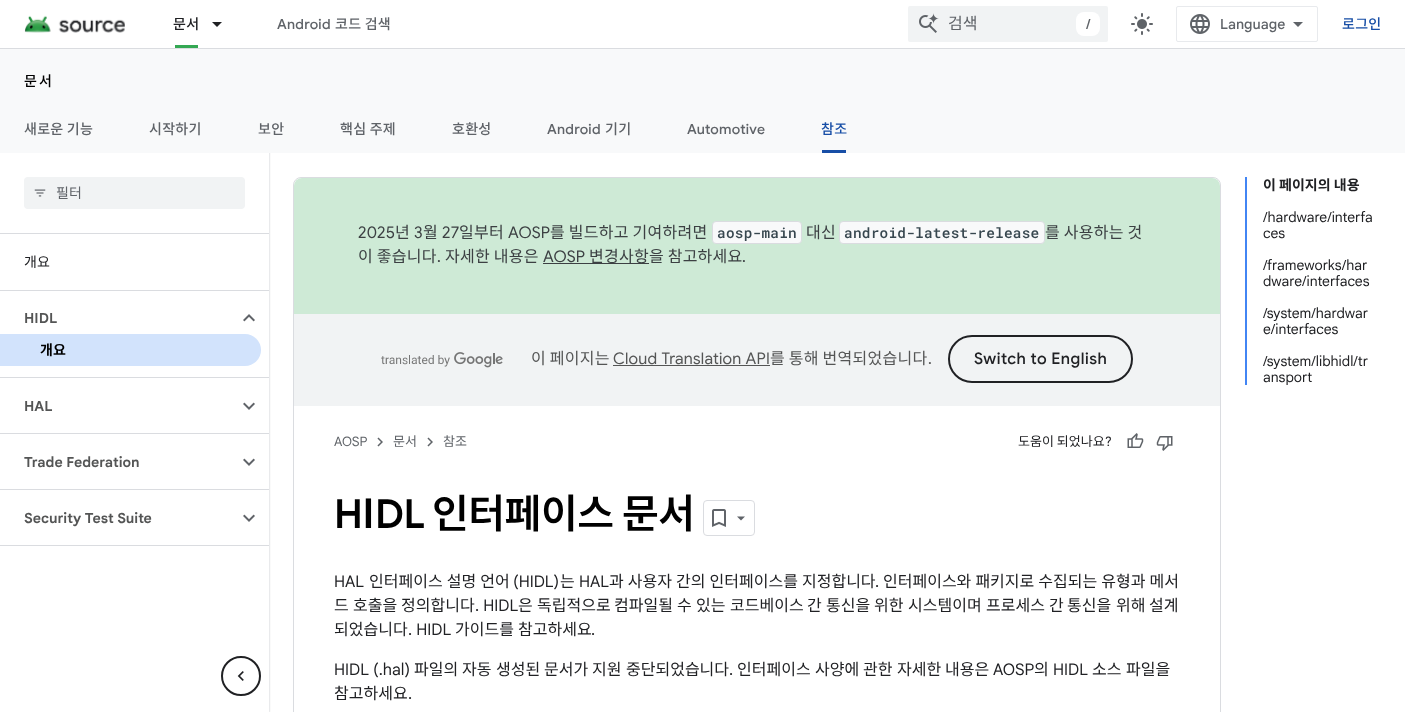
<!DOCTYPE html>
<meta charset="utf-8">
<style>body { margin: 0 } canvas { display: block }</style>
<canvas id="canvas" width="1405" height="712"></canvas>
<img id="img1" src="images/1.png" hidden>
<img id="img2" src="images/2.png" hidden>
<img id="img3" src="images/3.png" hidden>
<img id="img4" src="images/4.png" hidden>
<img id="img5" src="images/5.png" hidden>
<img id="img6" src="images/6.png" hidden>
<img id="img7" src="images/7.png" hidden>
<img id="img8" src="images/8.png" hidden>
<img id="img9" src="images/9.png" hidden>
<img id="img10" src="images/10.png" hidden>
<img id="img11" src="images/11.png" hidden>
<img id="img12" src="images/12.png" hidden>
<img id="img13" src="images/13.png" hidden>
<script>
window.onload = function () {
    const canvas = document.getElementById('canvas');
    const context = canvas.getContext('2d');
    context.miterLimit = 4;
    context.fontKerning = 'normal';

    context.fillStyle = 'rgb(255, 255, 255)';
    context.fillRect(0, 0, 1405, 712);
    context.save();
    context.beginPath();
    context.rect(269, 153, 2, 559);
    context.clip();
    context.fillStyle = 'rgb(189, 193, 198)';
    context.filter = 'blur(1px)';
    context.beginPath();
    context.rect(0, 1, 269, 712);
    context.fill();
    context.filter = 'none';
    context.restore();
    context.fillRect(269, 0, 2, 48);
    context.fillStyle = 'rgb(218, 220, 224)';
    context.fillRect(0, 48, 1405, 1);
    context.drawImage(document.getElementById('img1'), 24, 15, 101, 18);
    context.fillStyle = 'rgb(52, 168, 83)';
    context.fillRect(175, 45, 23, 3);
    context.fillStyle = 'rgb(32, 33, 36)';
    context.beginPath();
    context.moveTo(212, 22);
    context.lineTo(222, 22);
    context.lineTo(217, 27);
    context.closePath();
    context.fill();
    context.fillStyle = 'rgb(241, 243, 244)';
    context.beginPath();
    context.roundRect(908, 6, 200, 36, 2);
    context.fill();
    context.drawImage(document.getElementById('img2'), 919, 13, 20, 20);
    context.fillStyle = 'rgb(255, 255, 255)';
    context.beginPath();
    context.roundRect(1076, 12, 24, 24, 8);
    context.fill();
    context.drawImage(document.getElementById('img3'), 1131, 13, 22, 22);
    context.beginPath();
    context.roundRect(1176.5, 6.5, 141, 35, 1.5);
    context.strokeStyle = 'rgb(232, 234, 237)';
    context.stroke();
    context.drawImage(document.getElementById('img4'), 1190, 14, 20, 20);
    context.fillStyle = 'rgb(95, 99, 104)';
    context.beginPath();
    context.moveTo(1298, 27);
    context.lineTo(1293, 22);
    context.lineTo(1303, 22);
    context.closePath();
    context.fill();
    context.fillStyle = 'rgb(248, 249, 250)';
    context.fillRect(0, 49, 1405, 104);
    context.fillStyle = 'rgb(23, 78, 166)';
    context.fillRect(822, 150, 24, 3);
    context.fillStyle = 'rgb(218, 220, 224)';
    context.fillRect(0, 233, 269, 1);
    context.fillStyle = 'rgb(241, 243, 244)';
    context.beginPath();
    context.roundRect(24, 177, 221, 32, 4);
    context.fill();
    context.drawImage(document.getElementById('img5'), 34, 189, 12, 8);
    context.fillStyle = 'rgb(218, 220, 224)';
    context.fillRect(0, 290, 269, 1);
    context.fillRect(0, 377, 269, 1);
    context.drawImage(document.getElementById('img6'), 243, 314, 12, 8);
    context.fillStyle = 'rgb(210, 227, 252)';
    context.beginPath();
    context.roundRect(0, 334, 261, 32, [0, 16, 16, 0]);
    context.fill();
    context.fillStyle = 'rgb(218, 220, 224)';
    context.fillRect(0, 433, 269, 1);
    context.drawImage(document.getElementById('img7'), 243, 402, 12, 8);
    context.fillRect(0, 489, 269, 1);
    context.drawImage(document.getElementById('img7'), 243, 458, 12, 8);
    context.fillRect(0, 545, 269, 1);
    context.drawImage(document.getElementById('img7'), 243, 514, 12, 8);
    context.beginPath();
    context.roundRect(293.5, 177.5, 927, 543, 7.5);
    context.strokeStyle = 'rgb(218, 220, 224)';
    context.stroke();
    context.fillStyle = 'rgb(206, 234, 214)';
    context.beginPath();
    context.roundRect(294, 178, 926, 136, [8, 8, 0, 0]);
    context.fill();
    context.fillStyle = 'rgb(248, 249, 250)';
    context.beginPath();
    context.roundRect(712.5, 221.5, 89, 22, 3.5);
    context.fill();
    context.stroke();
    context.beginPath();
    context.roundRect(839.5, 221.5, 205, 22, 3.5);
    context.fill();
    context.stroke();
    context.fillStyle = 'rgb(60, 64, 67)';
    context.fillRect(543, 263, 106, 1);
    context.fillStyle = 'rgb(241, 243, 244)';
    context.fillRect(294, 314, 926, 92);
    context.drawImage(document.getElementById('img8'), 381, 352, 122, 16);
    context.fillStyle = 'rgb(84, 85, 85)';
    context.fillRect(613, 365, 157, 1);
    context.beginPath();
    context.roundRect(949, 336, 183, 46, 23);
    context.strokeStyle = 'rgb(32, 33, 36)';
    context.lineWidth = 2;
    context.stroke();
    context.drawImage(document.getElementById('img9'), 377, 437, 6, 10);
    context.drawImage(document.getElementById('img9'), 427, 437, 6, 10);
    context.drawImage(document.getElementById('img10'), 1127, 433, 17, 15);
    context.drawImage(document.getElementById('img11'), 1156, 436, 17, 15);
    context.beginPath();
    context.roundRect(703.5, 500.5, 51, 35, 3.5);
    context.strokeStyle = 'rgb(218, 220, 224)';
    context.lineWidth = 1;
    context.stroke();
    context.drawImage(document.getElementById('img12'), 712, 509, 14, 18);
    context.fillStyle = 'rgb(95, 99, 104)';
    context.beginPath();
    context.moveTo(737, 516.5);
    context.lineTo(745, 516.5);
    context.lineTo(741, 520.5);
    context.closePath();
    context.fill();
    context.fillStyle = 'rgb(66, 133, 244)';
    context.fillRect(1245, 177, 2, 208);
    context.beginPath();
    context.arc(241, 676, 19, 0, 2 * Math.PI);
    context.strokeStyle = 'rgb(32, 33, 36)';
    context.lineWidth = 2;
    context.stroke();
    context.drawImage(document.getElementById('img13'), 237, 671, 7, 10);
    context.letterSpacing = '0.25px';
    context.font = '500 14px Noto Sans KR';
    context.fillStyle = 'rgb(32, 33, 36)';
    context.fillText('문서', 173, 29);
    context.font = '500 14px Google Sans';
    context.fillStyle = 'rgb(95, 99, 104)';
    context.fillText('Android', 277, 29);
    context.font = '500 14px Noto Sans KR';
    context.fillText('코드 검색', 335, 29);
    context.letterSpacing = '0px';
    context.font = '16px Noto Sans KR';
    context.fillText('검색', 948, 29);
    context.font = '500 14px Google Sans';
    context.fillText('/', 1086, 29);
    context.font = '500 14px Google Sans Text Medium';
    context.fillText('Language', 1220, 29);
    context.letterSpacing = '0.25px';
    context.font = '500 14px Noto Sans KR';
    context.fillStyle = 'rgb(23, 78, 166)';
    context.fillText('로그인', 1342, 29);
    context.letterSpacing = '2px';
    context.fillStyle = 'rgb(0, 0, 0)';
    context.fillText('문서', 24, 86);
    context.letterSpacing = '0.25px';
    context.fillStyle = 'rgb(95, 99, 104)';
    context.fillText('새로운 기능', 24, 134);
    context.fillText('시작하기', 149, 134);
    context.fillText('보안', 258, 134);
    context.fillText('핵심 주제', 340, 134);
    context.fillText('호환성', 452, 134);
    context.font = '500 14px Google Sans';
    context.fillText('Android', 547, 134);
    context.font = '500 14px Noto Sans KR';
    context.fillText('기기', 605, 134);
    context.font = '500 14px Google Sans';
    context.fillText('Automotive', 687, 134);
    context.font = '500 14px Noto Sans KR';
    context.fillStyle = 'rgb(23, 78, 166)';
    context.fillText('참조', 821, 134);
    context.letterSpacing = '0px';
    context.font = '14px Noto Sans KR';
    context.fillStyle = 'rgb(95, 99, 104)';
    context.fillText('필터', 56, 198);
    context.fillStyle = 'rgb(32, 33, 36)';
    context.fillText('개요', 24, 267);
    context.font = 'bold 14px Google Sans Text';
    context.fillStyle = 'rgb(84, 85, 85)';
    context.fillText('HIDL', 24, 323);
    context.font = 'bold 14px Noto Sans KR';
    context.fillStyle = 'rgb(0, 0, 0)';
    context.fillText('개요', 40, 355);
    context.font = 'bold 14px Google Sans Text';
    context.fillStyle = 'rgb(84, 85, 85)';
    context.fillText('HAL', 24, 411);
    context.fillText('Trade Federation', 24, 467);
    context.fillText('Security Test Suite', 24, 523);
    context.letterSpacing = '0.25px';
    context.font = '16px Google Sans';
    context.fillStyle = 'rgb(60, 64, 67)';
    context.fillText('2025', 358, 238);
    context.font = '16px Noto Sans KR';
    context.fillText('년', 395, 238);
    context.font = '16px Google Sans';
    context.fillText('3', 414, 238);
    context.font = '16px Noto Sans KR';
    context.fillText('월', 423, 238);
    context.font = '16px Google Sans';
    context.fillText('27', 442, 238);
    context.font = '16px Noto Sans KR';
    context.fillText('일부터', 459, 238);
    context.font = '16px Google Sans';
    context.fillText('AOSP', 508, 238);
    context.font = '16px Noto Sans KR';
    context.fillText('를 빌드하고 기여하려면', 550, 238);
    context.font = '500 14.4px Roboto Mono';
    context.fillStyle = 'rgb(55, 71, 79)';
    context.fillText('aosp-main', 717, 238);
    context.font = '16px Noto Sans KR';
    context.fillStyle = 'rgb(60, 64, 67)';
    context.fillText('대신', 806, 238);
    context.font = '500 14.4px Roboto Mono';
    context.fillStyle = 'rgb(55, 71, 79)';
    context.fillText('android-latest-release', 844, 238);
    context.font = '16px Noto Sans KR';
    context.fillStyle = 'rgb(60, 64, 67)';
    context.fillText('를 사용하는 것', 1045, 238);
    context.fillText('이 좋습니다', 358, 262);
    context.font = '16px Google Sans';
    context.fillText('.', 437, 262);
    context.font = '16px Noto Sans KR';
    context.fillText('자세한 내용은', 445, 262);
    context.font = '16px Google Sans';
    context.fillText('AOSP', 543, 262);
    context.font = '16px Noto Sans KR';
    context.fillText('변경사항을 참고하세요', 589, 262);
    context.font = '16px Google Sans';
    context.fillText('.', 742, 262);
    context.font = '16px Noto Sans KR';
    context.fillStyle = 'rgb(84, 85, 85)';
    context.fillText('이 페이지는', 531, 364);
    context.font = '16px Google Sans';
    context.fillText('Cloud Translation API', 613, 364);
    context.font = '16px Noto Sans KR';
    context.fillText('를 통해 번역되었습니다', 770, 364);
    context.font = '16px Google Sans';
    context.fillText('.', 928, 364);
    context.letterSpacing = '0.5px';
    context.font = '500 16px Google Sans';
    context.fillStyle = 'rgb(32, 33, 36)';
    context.fillText('Switch to English', 974, 364);
    context.letterSpacing = '0px';
    context.font = '13px Google Sans Text';
    context.fillStyle = 'rgb(95, 99, 104)';
    context.fillText('AOSP', 334, 446);
    context.font = '13px Noto Sans KR';
    context.fillText('문서', 393, 446);
    context.fillText('참조', 443, 446);
    context.fillStyle = 'rgb(32, 33, 36)';
    context.fillText('도움이 되었나요', 1018, 446);
    context.font = '13px Google Sans Text';
    context.fillText('?', 1105, 446);
    context.letterSpacing = '-0.5px';
    context.font = '600 40px Google Sans';
    context.fillStyle = 'rgb(0, 0, 0)';
    context.fillText('H', 334, 528);
    context.font = '600 40px Noto Sans KR';
    context.fillText('I', 362, 528);
    context.font = '600 40px Google Sans';
    context.fillText('DL', 375, 528);
    context.font = '600 40px Noto Sans KR';
    context.fillText('인터페이스 문서', 432, 528);
    context.letterSpacing = '0px';
    context.font = '16px Google Sans Text';
    context.fillStyle = 'rgb(32, 33, 36)';
    context.fillText('HAL', 334, 587);
    context.wordSpacing = '0.5px';
    context.font = '16px Noto Sans KR';
    context.fillText('인터페이스 설명 언어', 369, 587);
    context.wordSpacing = '0px';
    context.font = '16px Google Sans Text';
    context.fillText('(HIDL)', 513, 587);
    context.font = '16px Noto Sans KR';
    context.fillText('는', 560, 587);
    context.font = '16px Google Sans Text';
    context.fillText('HAL', 579, 587);
    context.wordSpacing = '0.5px';
    context.font = '16px Noto Sans KR';
    context.fillText('과 사용자 간의 인터페이스를 지정합니다', 609, 587);
    context.wordSpacing = '0px';
    context.font = '16px Google Sans Text';
    context.fillText('.', 875, 587);
    context.wordSpacing = '0.5px';
    context.font = '16px Noto Sans KR';
    context.fillText('인터페이스와 패키지로 수집되는 유형과 메서', 883, 587);
    context.wordSpacing = '0px';
    context.fillText('드', 334, 611);
    context.fillText('호출을', 353, 611);
    context.fillText('정의합니다', 401, 611);
    context.font = '16px Google Sans Text';
    context.fillText('. HIDL', 475, 611);
    context.font = '16px Noto Sans KR';
    context.fillText('은', 518, 611);
    context.fillText('독립적으로', 537, 611);
    context.fillText('컴파일될', 614, 611);
    context.fillText('수', 677, 611);
    context.fillText('있는', 696, 611);
    context.fillText('코드베이스', 730, 611);
    context.fillText('간', 807, 611);
    context.fillText('통신을', 826, 611);
    context.fillText('위한', 874, 611);
    context.fillText('시스템이며', 908, 611);
    context.fillText('프로세스', 986, 611);
    context.fillText('간', 1049, 611);
    context.fillText('통신을', 1067, 611);
    context.fillText('위해', 1116, 611);
    context.fillText('설계', 1149, 611);
    context.fillText('되었습니다', 334, 635);
    context.font = '16px Google Sans Text';
    context.fillText('. HIDL', 408, 635);
    context.font = '16px Noto Sans KR';
    context.fillText('가이드를', 455, 635);
    context.fillText('참고하세요', 518, 635);
    context.font = '16px Google Sans Text';
    context.fillText('.', 591, 635);
    context.fillText('HIDL (.hal)', 334, 675);
    context.font = '16px Noto Sans KR';
    context.fillText('파일의', 414, 675);
    context.fillText('자동', 462, 675);
    context.fillText('생성된', 496, 675);
    context.fillText('문서가', 544, 675);
    context.fillText('지원', 592, 675);
    context.fillText('중단되었습니다', 626, 675);
    context.font = '16px Google Sans Text';
    context.fillText('.', 729, 675);
    context.font = '16px Noto Sans KR';
    context.fillText('인터페이스', 737, 675);
    context.fillText('사양에', 815, 675);
    context.fillText('관한', 863, 675);
    context.fillText('자세한', 897, 675);
    context.fillText('내용은', 945, 675);
    context.font = '16px Google Sans Text';
    context.fillText('AOSP', 993, 675);
    context.font = '16px Noto Sans KR';
    context.fillText('의', 1034, 675);
    context.font = '16px Google Sans Text';
    context.fillText('HIDL', 1053, 675);
    context.font = '16px Noto Sans KR';
    context.fillText('소스', 1092, 675);
    context.fillText('파일을', 1126, 675);
    context.fillText('참고하세요', 334, 699);
    context.font = '16px Google Sans Text';
    context.fillText('.', 408, 699);
    context.font = 'bold 14px Noto Sans KR';
    context.fillText('이 페이지의 내용', 1263, 190);
    context.font = '14px Google Sans Text';
    context.fillText('/hardware/interfa', 1263, 222);
    context.fillText('ces', 1263, 238);
    context.fillText('/frameworks/har', 1263, 270);
    context.fillText('dware/interfaces', 1263, 286);
    context.fillText('/system/hardwar', 1263, 318);
    context.fillText('e/interfaces', 1263, 334);
    context.fillText('/system/libhidl/tr', 1263, 366);
    context.fillText('ansport', 1263, 382);
};
</script>
